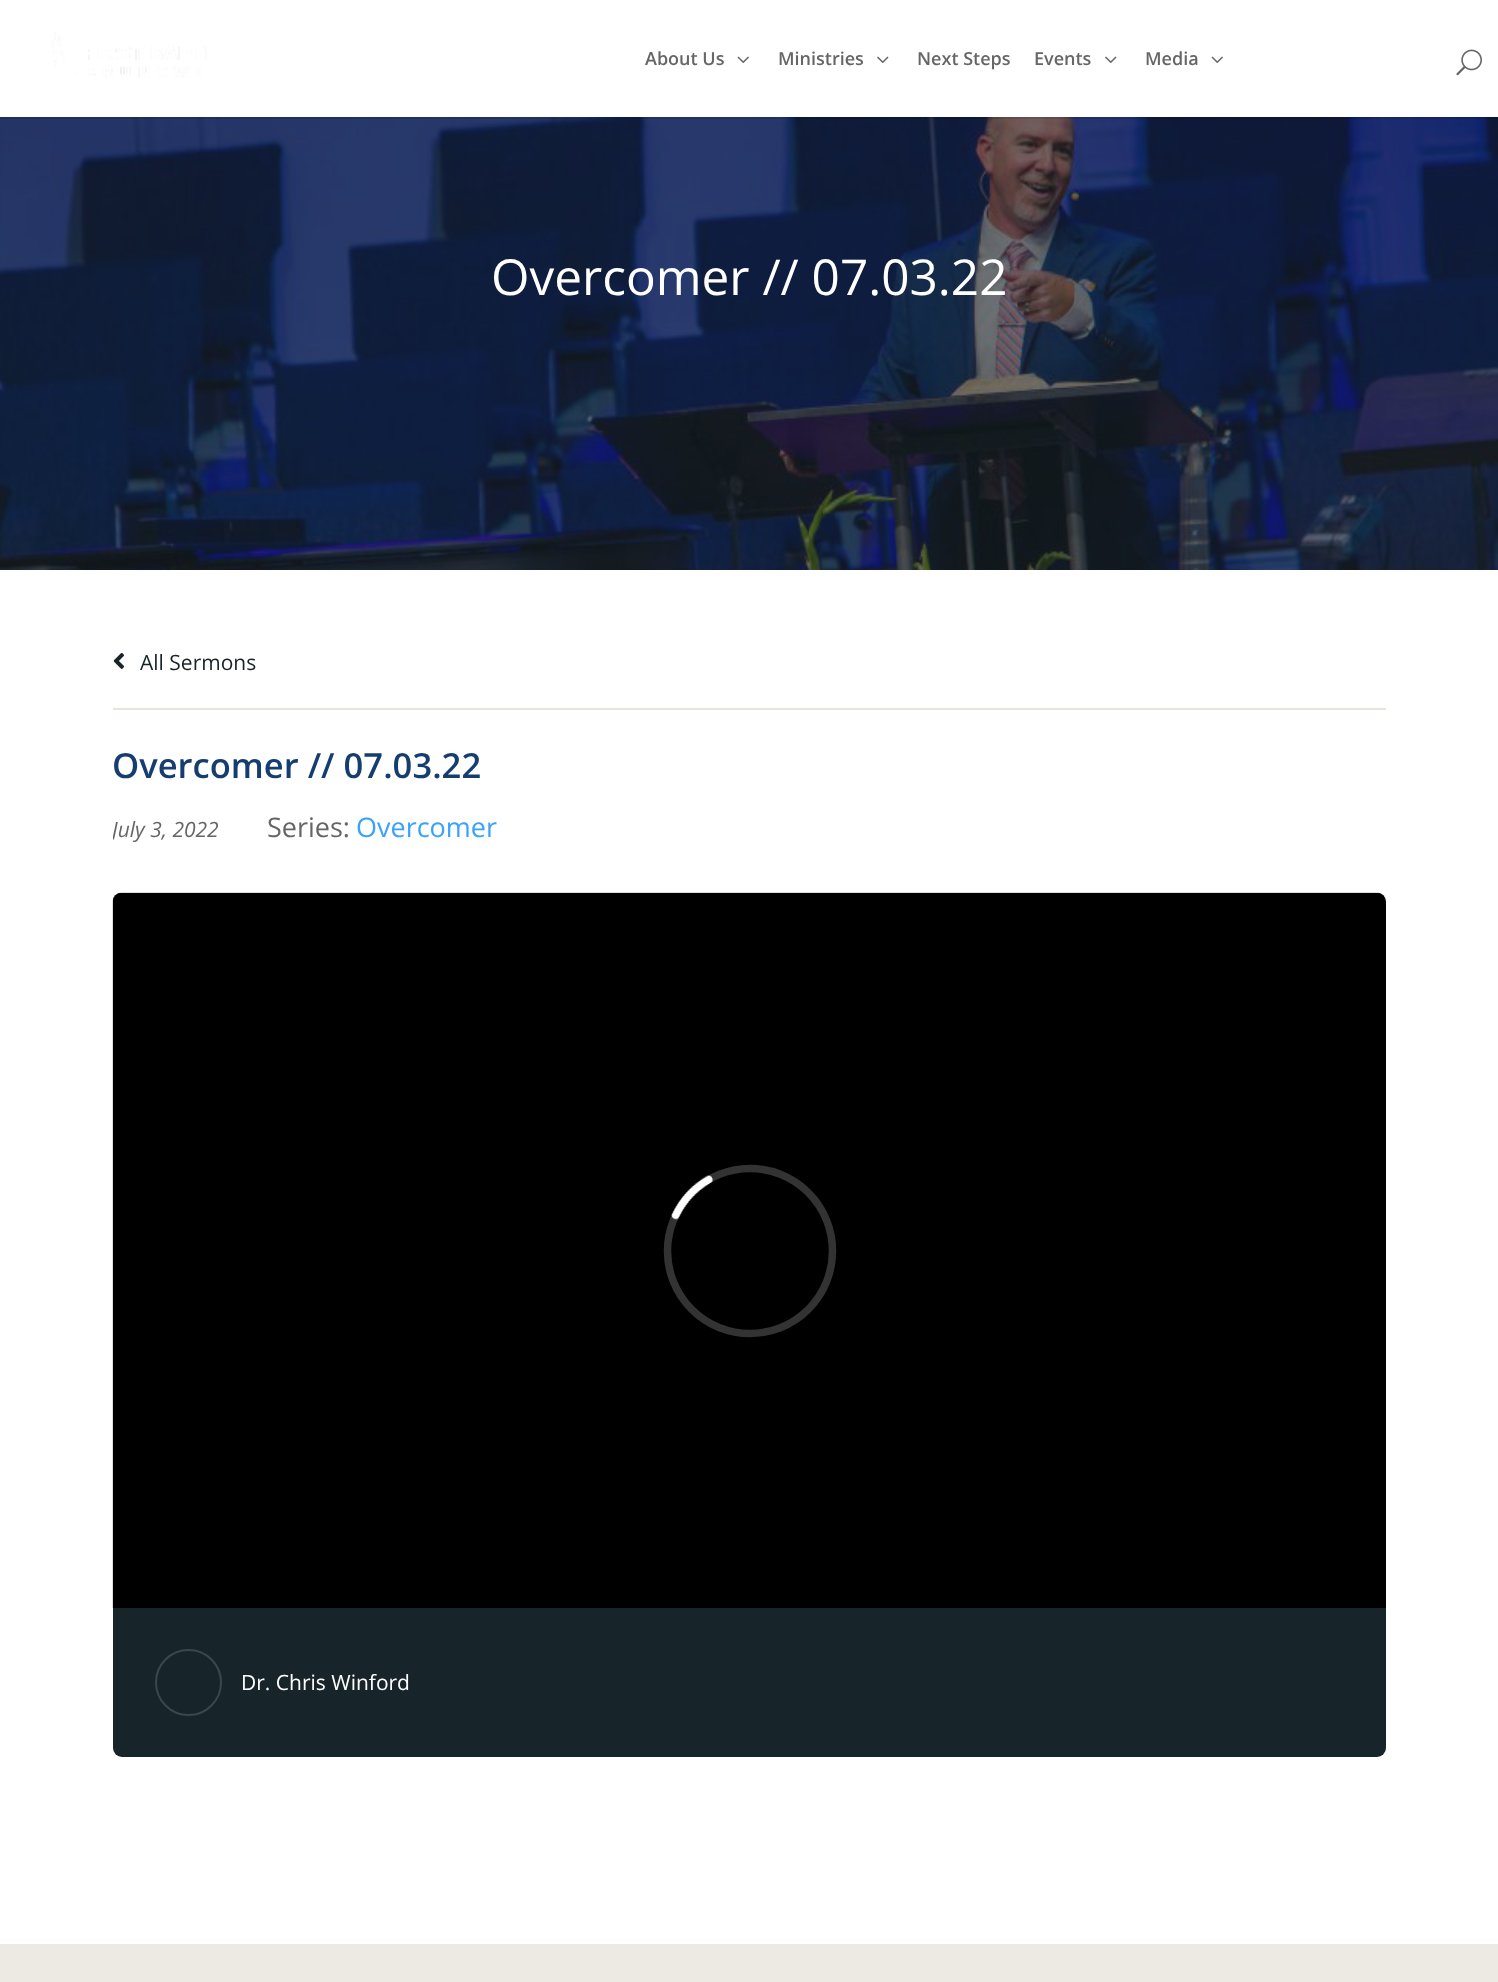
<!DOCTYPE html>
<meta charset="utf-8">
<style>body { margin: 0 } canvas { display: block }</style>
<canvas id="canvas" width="1498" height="1982"></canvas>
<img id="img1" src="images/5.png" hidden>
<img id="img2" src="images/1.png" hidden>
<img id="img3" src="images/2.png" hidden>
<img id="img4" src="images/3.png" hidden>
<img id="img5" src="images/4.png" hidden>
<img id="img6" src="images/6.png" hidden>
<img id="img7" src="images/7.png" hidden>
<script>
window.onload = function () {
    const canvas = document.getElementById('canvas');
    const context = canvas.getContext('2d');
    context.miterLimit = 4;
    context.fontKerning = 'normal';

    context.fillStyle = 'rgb(255, 255, 255)';
    context.fillRect(0, 0, 1498, 1982);
    context.drawImage(document.getElementById('img1'), 0, 117, 1498, 453);
    context.fillStyle = 'rgba(0, 0, 0, 0.1)';
    context.beginPath();
    context.moveTo(0, 117);
    context.lineTo(0, 119);
    context.lineTo(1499, 119);
    context.lineTo(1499, 2);
    context.lineTo(1498, 2);
    context.lineTo(1498, 117);
    context.closePath();
    context.fill();
    context.drawImage(document.getElementById('img2'), 51, 32, 156, 46);
    context.drawImage(document.getElementById('img3'), 737, 56, 12, 7);
    context.drawImage(document.getElementById('img4'), 877, 56, 12, 7);
    context.drawImage(document.getElementById('img4'), 1105, 56, 12, 7);
    context.drawImage(document.getElementById('img3'), 1211, 56, 12, 7);
    context.drawImage(document.getElementById('img5'), 1456, 49, 26, 27);
    context.fillStyle = 'rgb(233, 229, 222)';
    context.fillRect(113, 708, 1273, 2);
    context.drawImage(document.getElementById('img6'), 113, 653, 11, 16);
    context.fillStyle = 'rgb(23, 36, 42)';
    context.beginPath();
    context.roundRect(113, 1607, 1273, 150, [0, 0, 9, 9]);
    context.fill();
    context.drawImage(document.getElementById('img7'), 112, 892, 1274, 716);
    context.beginPath();
    context.arc(188.5, 1682.5, 32.5, 0, 2 * Math.PI);
    context.strokeStyle = 'rgb(60, 71, 76)';
    context.lineWidth = 2;
    context.stroke();
    context.fillStyle = 'rgb(237, 234, 228)';
    context.fillRect(0, 1944, 1498, 38);
    context.font = '600 18px Open Sans';
    context.fillStyle = 'rgb(102, 102, 102)';
    context.fillText('About Us', 645, 65);
    context.fillText('Ministries', 778, 65);
    context.fillText('Next Steps', 917, 65);
    context.fillText('Events', 1034, 65);
    context.fillText('Media', 1145, 65);
    context.font = '49.5px Open Sans';
    context.fillStyle = 'rgb(255, 255, 255)';
    context.fillText('Overcomer // 07.03.22', 491, 295);
    context.font = '21px Open Sans';
    context.fillStyle = 'rgb(23, 36, 42)';
    context.fillText('All Sermons', 140, 670);
    context.font = '600 34.6px Open Sans';
    context.fillStyle = 'rgb(22, 61, 112)';
    context.fillText('Overcomer // 07.03.22', 112, 778);
    context.save();
    context.beginPath();
    context.rect(113, 807, 1273, 86);
    context.clip();
    context.font = 'italic 21px Open Sans';
    context.fillStyle = 'rgb(102, 102, 102)';
    context.fillText('July 3, 2022', 112, 837);
    context.restore();
    context.font = '27px Open Sans';
    context.fillStyle = 'rgb(102, 102, 102)';
    context.fillText('Series:', 267, 837);
    context.fillStyle = 'rgb(57, 162, 251)';
    context.fillText('Overcomer', 356, 837);
    context.font = '21px Open Sans';
    context.fillStyle = 'rgb(255, 255, 255)';
    context.fillText('Dr. Chris Winford', 241, 1690);
};
</script>
